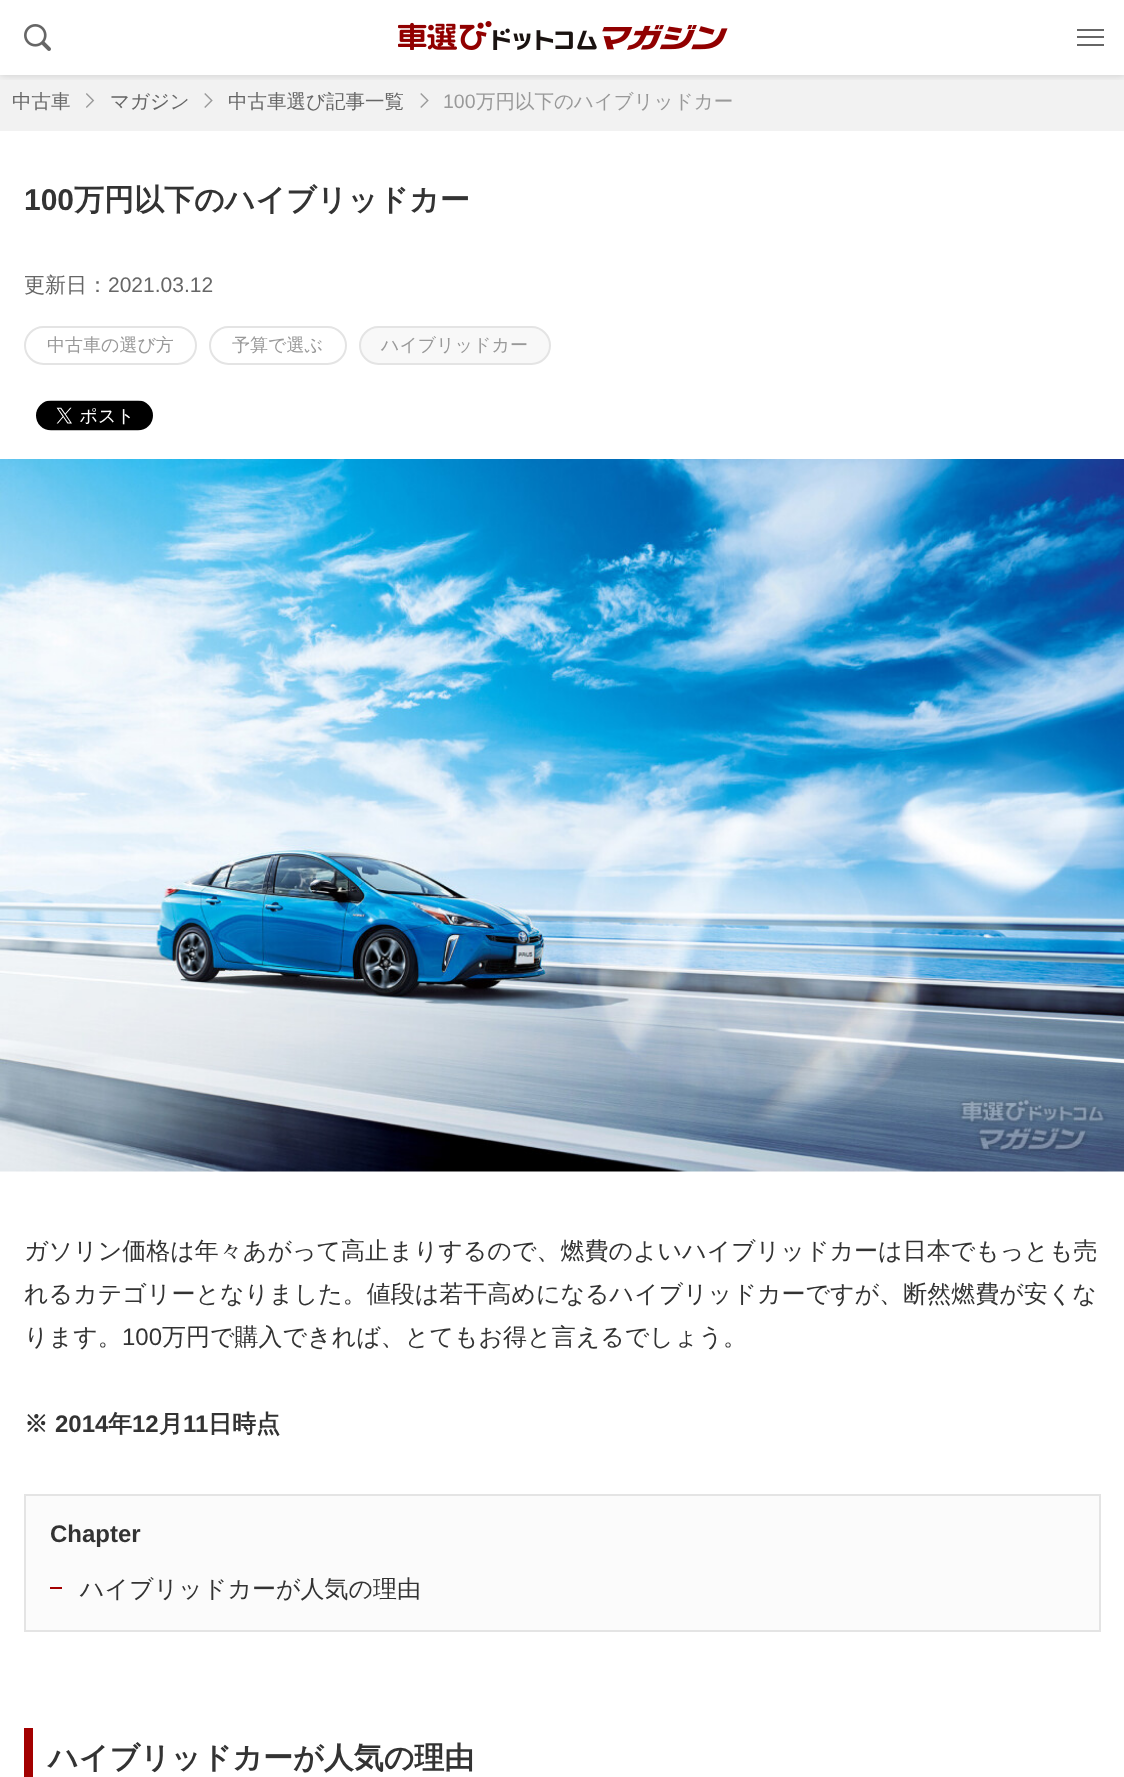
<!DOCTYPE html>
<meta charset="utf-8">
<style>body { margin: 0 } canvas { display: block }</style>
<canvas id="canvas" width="1124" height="1777"></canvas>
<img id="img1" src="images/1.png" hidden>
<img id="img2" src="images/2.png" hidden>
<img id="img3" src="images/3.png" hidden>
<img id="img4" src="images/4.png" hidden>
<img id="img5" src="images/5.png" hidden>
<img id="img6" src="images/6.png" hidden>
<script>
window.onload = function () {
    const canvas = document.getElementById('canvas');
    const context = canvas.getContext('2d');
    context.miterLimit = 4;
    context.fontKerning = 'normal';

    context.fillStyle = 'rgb(255, 255, 255)';
    context.fillRect(0, 0, 1124, 1777);
    context.fillStyle = 'rgb(242, 242, 242)';
    context.fillRect(0, 75, 1124, 56);
    context.save();
    context.beginPath();
    context.rect(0, 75, 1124, 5);
    context.clip();
    context.fillStyle = 'rgba(0, 0, 0, 0.16)';
    context.filter = 'blur(4px)';
    context.beginPath();
    context.rect(0, 0, 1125, 75);
    context.fill();
    context.filter = 'none';
    context.restore();
    context.drawImage(document.getElementById('img1'), 24, 24, 27, 27);
    context.drawImage(document.getElementById('img2'), 398, 21, 330, 29);
    context.fillStyle = 'rgb(102, 102, 102)';
    context.fillRect(1077, 29, 27, 2);
    context.fillRect(1077, 36, 27, 2);
    context.fillRect(1077, 44, 27, 2);
    context.drawImage(document.getElementById('img3'), 86, 93, 9, 15);
    context.drawImage(document.getElementById('img4'), 204, 93, 9, 15);
    context.drawImage(document.getElementById('img4'), 420, 93, 9, 15);
    context.beginPath();
    context.roundRect(25, 327, 171, 37, 18.5);
    context.strokeStyle = 'rgb(228, 228, 228)';
    context.lineWidth = 2;
    context.stroke();
    context.beginPath();
    context.roundRect(210, 327, 136, 37, 18.5);
    context.stroke();
    context.fillStyle = 'rgb(248, 248, 248)';
    context.beginPath();
    context.roundRect(360, 327, 190, 37, 18.5);
    context.fill();
    context.stroke();
    context.drawImage(document.getElementById('img5'), 36, 400, 117, 31);
    context.drawImage(document.getElementById('img6'), 0, 459, 1124, 713);
    context.fillStyle = 'rgb(251, 251, 251)';
    context.beginPath();
    context.rect(25, 1495, 1075, 136);
    context.fill();
    context.stroke();
    context.fillStyle = 'rgb(163, 0, 0)';
    context.fillRect(50, 1587, 12, 2);
    context.fillRect(24, 1728, 9, 49);
    context.font = '500 19.5px WenQuanYi Zen Hei';
    context.fillStyle = 'rgb(102, 102, 102)';
    context.fillText('中古車', 12, 108);
    context.fillText('マガジン', 110, 108);
    context.fillText('中古車選び記事一覧', 228, 108);
    context.font = '19.5px Liberation Sans';
    context.fillStyle = 'rgb(153, 153, 153)';
    context.fillText('100', 443, 108);
    context.font = '500 19.5px WenQuanYi Zen Hei';
    context.fillText('万円以下のハイブリッドカー', 476, 108);
    context.font = 'bold 30px Liberation Sans';
    context.fillStyle = 'rgb(51, 51, 51)';
    context.fillText('100', 24, 210);
    context.font = 'bold 30px WenQuanYi Zen Hei';
    context.fillText('万円以下のハイブリッドカー', 74, 210);
    context.font = '500 21px WenQuanYi Zen Hei';
    context.fillStyle = 'rgb(102, 102, 102)';
    context.fillText('更新日：', 24, 292);
    context.font = '21px Liberation Sans';
    context.fillText('2021.03.12', 108, 292);
    context.font = '500 18px WenQuanYi Zen Hei';
    context.fillStyle = 'rgb(153, 153, 153)';
    context.fillText('中古車の選び方', 47, 351);
    context.fillText('予算で選ぶ', 232, 351);
    context.fillText('ハイブリッドカー', 381, 351);
    context.font = '500 24px WenQuanYi Zen Hei';
    context.fillStyle = 'rgb(51, 51, 51)';
    context.fillText('ガソリン価格は年々あがって高止まりするので、燃費のよいハイブリッドカーは日本でもっとも売', 24, 1259);
    context.fillText('れるカテゴリーとなりました。値段は若干高めになるハイブリッドカーですが、断然燃費が安くな', 24, 1302);
    context.fillText('ります。', 24, 1345);
    context.font = '24px Liberation Sans';
    context.fillText('100', 122, 1345);
    context.font = '500 24px WenQuanYi Zen Hei';
    context.fillText('万円で購入できれば、とてもお得と言えるでしょう。', 162, 1345);
    context.font = 'bold 24px WenQuanYi Zen Hei';
    context.fillText('※', 24, 1432);
    context.font = 'bold 24px Liberation Sans';
    context.fillText('2014', 55, 1432);
    context.font = 'bold 24px WenQuanYi Zen Hei';
    context.fillText('年', 108, 1432);
    context.font = 'bold 24px Liberation Sans';
    context.fillText('12', 132, 1432);
    context.font = 'bold 24px WenQuanYi Zen Hei';
    context.fillText('月', 159, 1432);
    context.font = 'bold 24px Liberation Sans';
    context.fillText('11', 183, 1432);
    context.font = 'bold 24px WenQuanYi Zen Hei';
    context.fillText('日時点', 208, 1432);
    context.font = 'bold 24px Liberation Sans';
    context.fillText('Chapter', 50, 1542);
    context.font = '500 24px WenQuanYi Zen Hei';
    context.fillText('ハイブリッドカーが人気の理由', 80, 1597);
    context.font = 'bold 30px WenQuanYi Zen Hei';
    context.fillText('ハイブリッドカーが人気の理由', 48, 1768);
};
</script>
